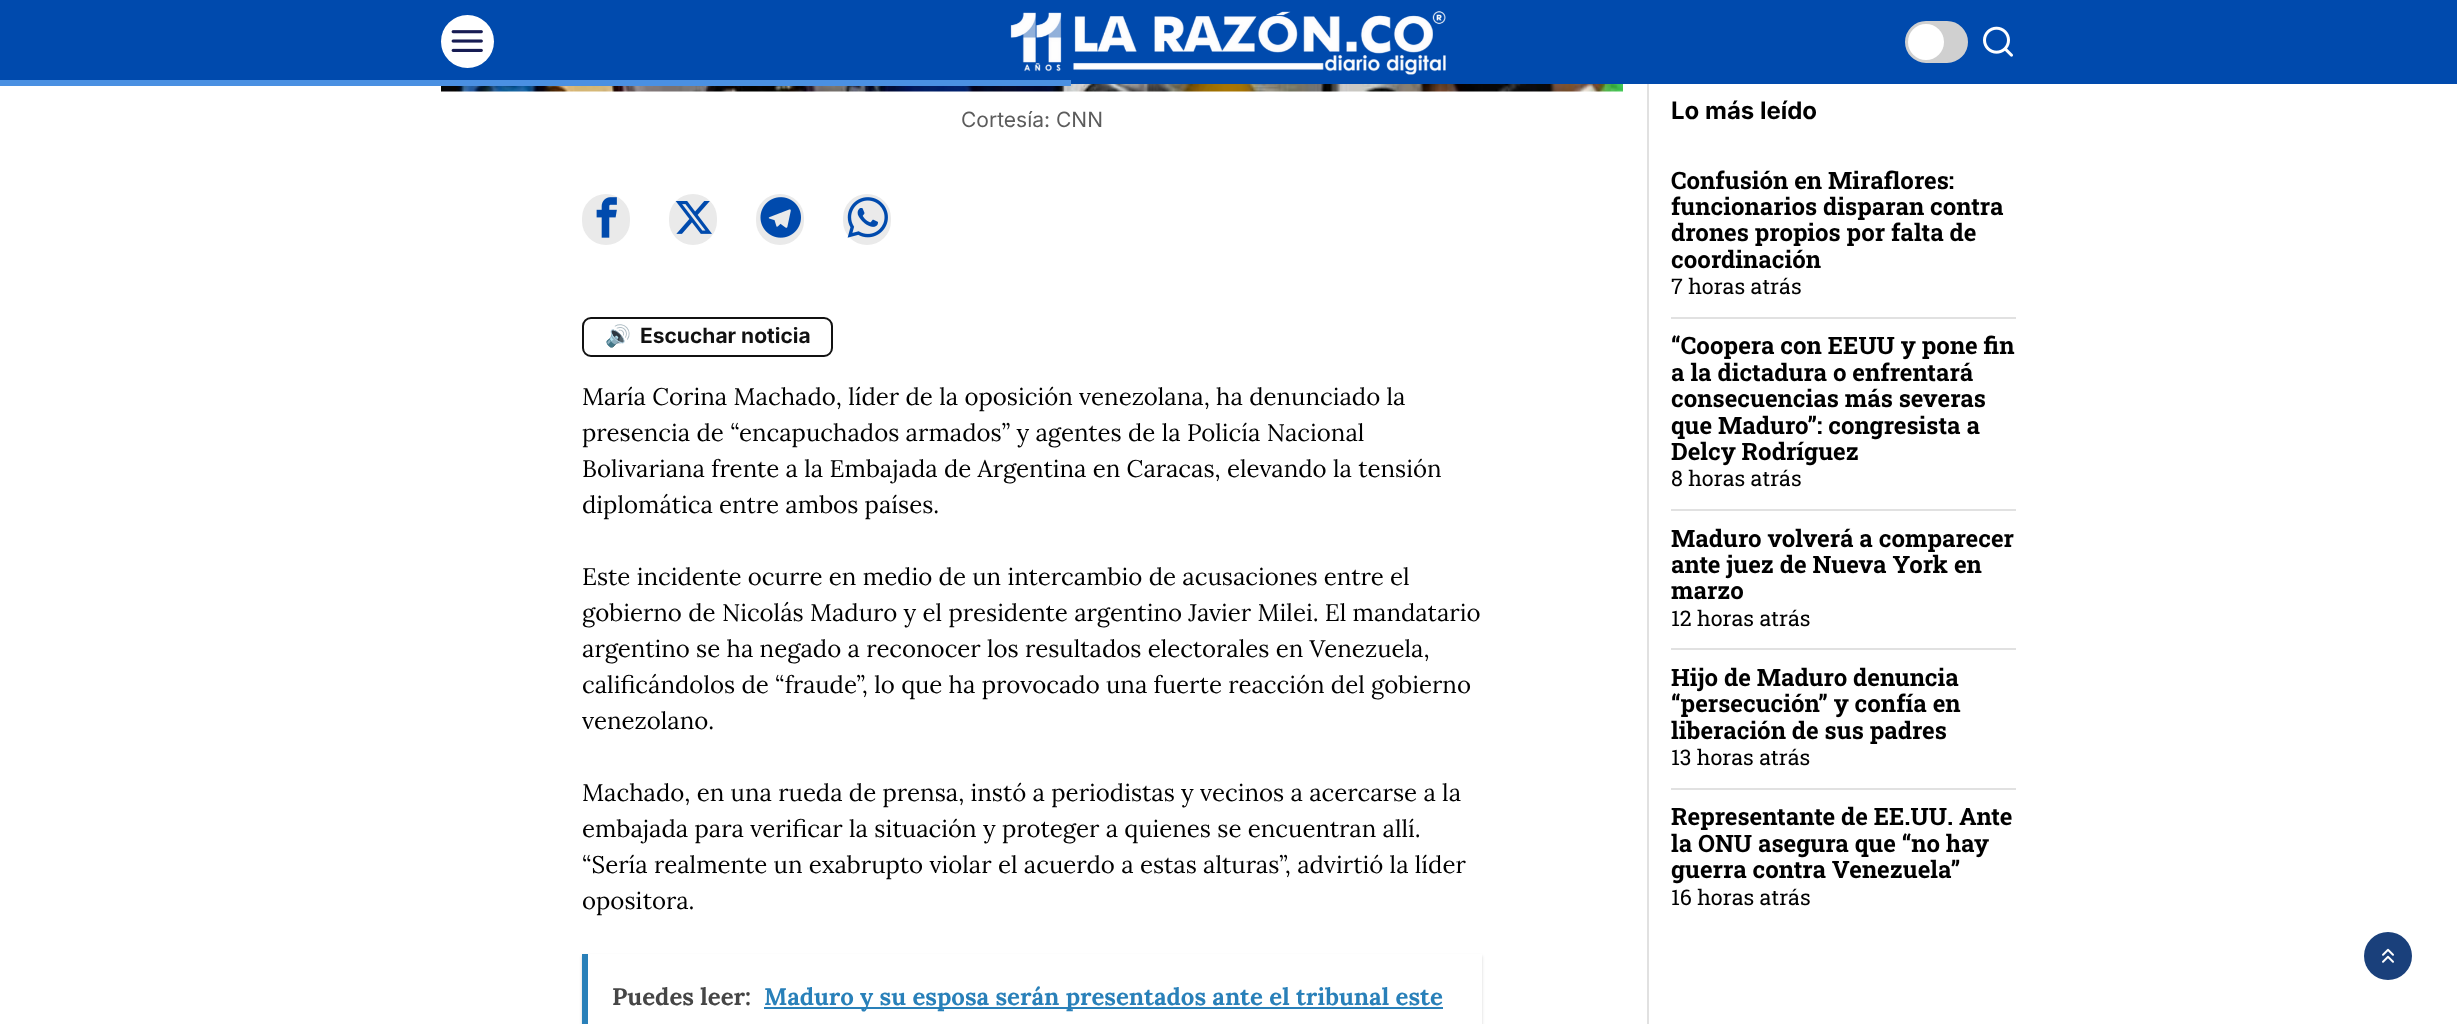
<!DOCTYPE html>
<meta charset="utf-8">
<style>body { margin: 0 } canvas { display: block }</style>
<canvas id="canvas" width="2457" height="1024"></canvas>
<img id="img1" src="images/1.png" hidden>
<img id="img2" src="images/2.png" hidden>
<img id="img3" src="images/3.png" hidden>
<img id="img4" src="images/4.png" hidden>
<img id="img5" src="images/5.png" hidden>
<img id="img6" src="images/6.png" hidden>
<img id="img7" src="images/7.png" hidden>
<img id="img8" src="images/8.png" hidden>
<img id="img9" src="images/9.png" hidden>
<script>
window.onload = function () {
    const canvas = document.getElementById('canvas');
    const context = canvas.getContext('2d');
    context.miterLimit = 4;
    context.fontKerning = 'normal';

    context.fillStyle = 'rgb(255, 255, 255)';
    context.fillRect(0, 0, 2457, 1024);
    context.fillStyle = 'rgb(0, 74, 173)';
    context.fillRect(0, 0, 2457, 84);
    context.fillStyle = 'rgb(255, 255, 255)';
    context.beginPath();
    context.arc(467.5, 41.5, 26.5, 0, 2 * Math.PI);
    context.fill();
    context.drawImage(document.getElementById('img1'), 451, 30, 32, 22);
    context.drawImage(document.getElementById('img2'), 1010, 11, 436, 64);
    context.fillStyle = 'rgb(208, 208, 208)';
    context.beginPath();
    context.roundRect(1906.5, 22.5, 60, 39, 19.5);
    context.fill();
    context.strokeStyle = 'rgb(208, 208, 208)';
    context.lineWidth = 3;
    context.stroke();
    context.fillStyle = 'rgb(255, 255, 255)';
    context.beginPath();
    context.arc(1926, 42, 18, 0, 2 * Math.PI);
    context.fill();
    context.drawImage(document.getElementById('img3'), 1983, 26, 30, 31);
    context.drawImage(document.getElementById('img4'), 441, 84, 1182, 8);
    context.fillStyle = 'rgb(74, 144, 226)';
    context.fillRect(0, 80, 1071, 6);
    context.fillStyle = 'rgb(234, 234, 234)';
    context.beginPath();
    context.roundRect(582, 194, 48, 51, 24);
    context.fill();
    context.drawImage(document.getElementById('img5'), 596, 197, 21, 41);
    context.beginPath();
    context.roundRect(669, 194, 48, 51, 24);
    context.fill();
    context.drawImage(document.getElementById('img6'), 675, 201, 37, 33);
    context.beginPath();
    context.roundRect(756, 194, 48, 51, 24);
    context.fill();
    context.drawImage(document.getElementById('img7'), 760, 197, 41, 41);
    context.beginPath();
    context.roundRect(843, 194, 48, 51, 24);
    context.fill();
    context.drawImage(document.getElementById('img8'), 847, 197, 41, 41);
    context.beginPath();
    context.roundRect(583, 318, 249, 38, 8);
    context.strokeStyle = 'rgb(17, 17, 17)';
    context.lineWidth = 2;
    context.stroke();
    context.save();
    context.beginPath();
    context.moveTo(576, 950);
    context.lineTo(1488, 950);
    context.lineTo(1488, 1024);
    context.lineTo(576, 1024);
    context.closePath();
    context.moveTo(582, 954);
    context.lineTo(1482, 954);
    context.lineTo(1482, 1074);
    context.lineTo(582, 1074);
    context.closePath();
    context.clip('evenodd');
    context.fillStyle = 'rgba(0, 0, 0, 0.17)';
    context.filter = 'blur(1.5px)';
    context.beginPath();
    context.rect(582, 956, 900, 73);
    context.fill();
    context.filter = 'none';
    context.restore();
    context.fillStyle = 'rgb(41, 128, 185)';
    context.fillRect(582, 954, 6, 70);
    context.fillRect(764, 1007, 679, 2);
    context.fillStyle = 'rgb(225, 225, 225)';
    context.fillRect(1647, 84, 2, 940);
    context.fillRect(1671, 317, 345, 2);
    context.fillRect(1671, 509, 345, 2);
    context.fillRect(1671, 648, 345, 2);
    context.fillRect(1671, 788, 345, 2);
    context.fillStyle = 'rgb(26, 64, 123)';
    context.beginPath();
    context.arc(2388, 956, 24, 0, 2 * Math.PI);
    context.fill();
    context.drawImage(document.getElementById('img9'), 2382, 948, 12, 15);
    context.font = '21px Inter';
    context.fillStyle = 'rgb(92, 92, 92)';
    context.fillText('Cortesía: CNN', 961, 127);
    context.font = 'bold 21px Noto Color Emoji';
    context.fillStyle = 'rgb(17, 17, 17)';
    context.fillText('🔊', 605, 343);
    context.font = 'bold 21px Inter';
    context.fillText('Escuchar noticia', 640, 343);
    context.font = '24px Lora';
    context.fillStyle = 'rgb(0, 0, 0)';
    context.fillText('María Corina Machado, líder de la oposición venezolana, ha denunciado la', 582, 405);
    context.fillText('presencia de “encapuchados armados” y agentes de la Policía Nacional', 582, 441);
    context.fillText('Bolivariana frente a la Embajada de Argentina en Caracas, elevando la tensión', 582, 477);
    context.fillText('diplomática entre ambos países.', 582, 513);
    context.fillText('Este incidente ocurre en medio de un intercambio de acusaciones entre el', 582, 585);
    context.fillText('gobierno de Nicolás Maduro y el presidente argentino Javier Milei. El mandatario', 582, 621);
    context.fillText('argentino se ha negado a reconocer los resultados electorales en Venezuela,', 582, 657);
    context.fillText('calificándolos de “fraude”, lo que ha provocado una fuerte reacción del gobierno', 582, 693);
    context.fillText('venezolano.', 582, 729);
    context.fillText('Machado, en una rueda de prensa, instó a periodistas y vecinos a acercarse a la', 582, 801);
    context.fillText('embajada para verificar la situación y proteger a quienes se encuentran allí.', 582, 837);
    context.fillText('“Sería realmente un exabrupto violar el acuerdo a estas alturas”, advirtió la líder', 582, 873);
    context.fillText('opositora.', 582, 909);
    context.font = 'bold 24px Lora';
    context.fillStyle = 'rgb(70, 70, 70)';
    context.fillText('Puedes leer:', 612, 1005);
    context.fillStyle = 'rgb(41, 128, 185)';
    context.fillText('Maduro y su esposa serán presentados ante el tribunal este', 764, 1005);
    context.font = 'bold 24px Inter';
    context.fillStyle = 'rgb(0, 0, 0)';
    context.fillText('Lo más leído', 1671, 119);
    context.font = 'bold 24px Roboto Slab';
    context.fillText('Confusión en Miraflores:', 1671, 189);
    context.fillText('funcionarios disparan contra', 1671, 215);
    context.fillText('drones propios por falta de', 1671, 241);
    context.fillText('coordinación', 1671, 268);
    context.font = '21.5px Roboto Slab';
    context.fillText('7 horas atrás', 1671, 294);
    context.font = 'bold 24px Roboto Slab';
    context.fillText('“Coopera con EEUU y pone fin', 1671, 354);
    context.fillText('a la dictadura o enfrentará', 1671, 381);
    context.fillText('consecuencias más severas', 1671, 407);
    context.fillText('que Maduro”: congresista a', 1671, 434);
    context.fillText('Delcy Rodríguez', 1671, 460);
    context.font = '21.5px Roboto Slab';
    context.fillText('8 horas atrás', 1671, 486);
    context.font = 'bold 24px Roboto Slab';
    context.fillText('Maduro volverá a comparecer', 1671, 547);
    context.fillText('ante juez de Nueva York en', 1671, 573);
    context.fillText('marzo', 1671, 599);
    context.font = '21.5px Roboto Slab';
    context.fillText('12 horas atrás', 1671, 626);
    context.font = 'bold 24px Roboto Slab';
    context.fillText('Hijo de Maduro denuncia', 1671, 686);
    context.fillText('“persecución” y confía en', 1671, 712);
    context.fillText('liberación de sus padres', 1671, 739);
    context.font = '21.5px Roboto Slab';
    context.fillText('13 horas atrás', 1671, 765);
    context.font = 'bold 24px Roboto Slab';
    context.fillText('Representante de EE.UU. Ante', 1671, 825);
    context.fillText('la ONU asegura que “no hay', 1671, 852);
    context.fillText('guerra contra Venezuela”', 1671, 878);
    context.font = '21.5px Roboto Slab';
    context.fillText('16 horas atrás', 1671, 905);
};
</script>
